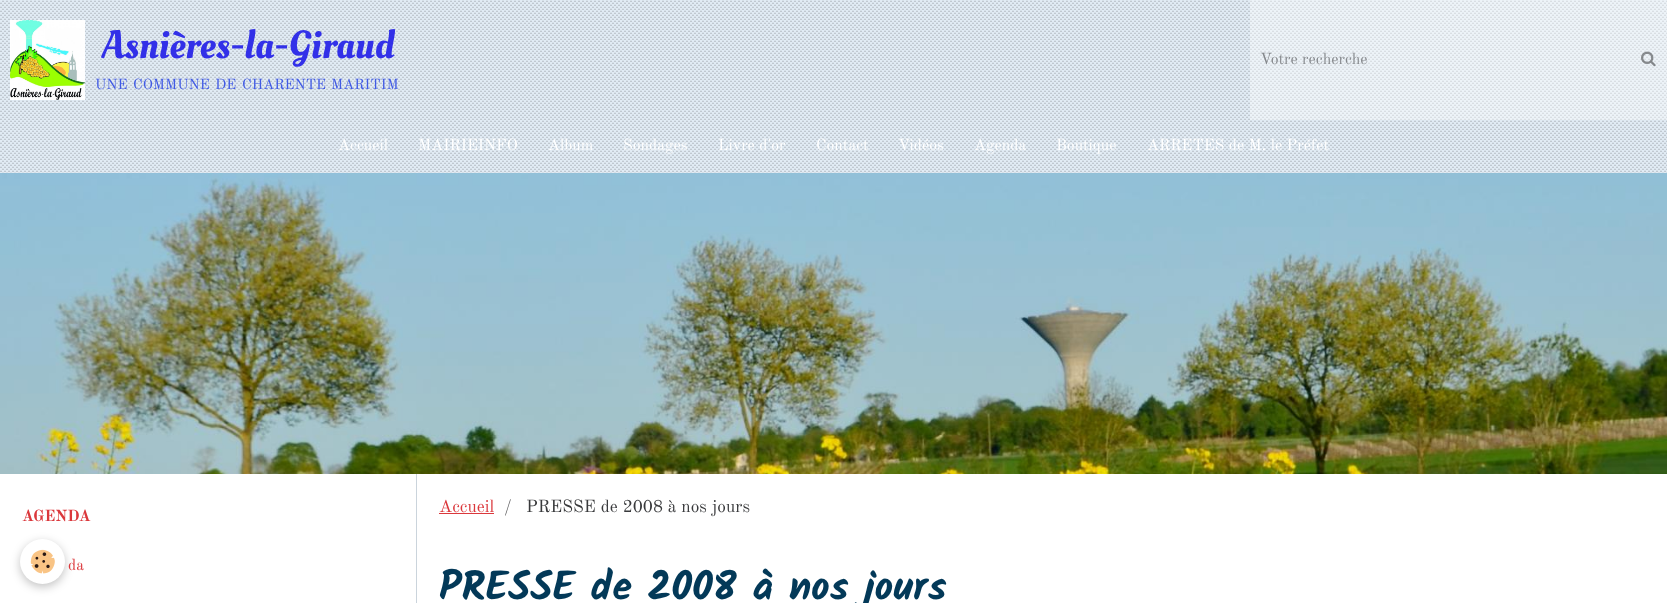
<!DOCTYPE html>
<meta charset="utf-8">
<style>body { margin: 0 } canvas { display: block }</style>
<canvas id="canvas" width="1667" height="603"></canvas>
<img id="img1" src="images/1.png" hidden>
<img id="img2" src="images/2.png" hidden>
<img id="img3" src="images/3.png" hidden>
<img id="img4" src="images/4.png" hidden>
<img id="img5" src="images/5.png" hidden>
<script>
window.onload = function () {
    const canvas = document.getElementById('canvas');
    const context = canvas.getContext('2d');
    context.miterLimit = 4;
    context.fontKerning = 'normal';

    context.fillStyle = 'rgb(226, 236, 245)';
    context.fillRect(0, 0, 1667, 603);
    context.drawImage(document.getElementById('img1'), 0, 0, 1667, 173);
    context.drawImage(document.getElementById('img2'), 10, 20, 75, 80);
    context.fillStyle = 'rgba(255, 255, 255, 0.4)';
    context.fillRect(1250, 0, 417, 120);
    context.drawImage(document.getElementById('img3'), 1641, 51, 15, 16);
    context.drawImage(document.getElementById('img4'), 0, 173, 1667, 301);
    context.fillStyle = 'rgb(255, 255, 255)';
    context.fillRect(0, 474, 416, 129);
    context.fillStyle = 'rgb(203, 212, 220)';
    context.fillRect(416, 474, 1, 129);
    context.fillStyle = 'rgb(255, 255, 255)';
    context.fillRect(417, 474, 1250, 129);
    context.fillStyle = 'rgb(219, 56, 60)';
    context.fillRect(439, 513, 55, 1);
    context.fillStyle = 'rgba(0, 0, 0, 0.24)';
    context.filter = 'blur(5px)';
    context.beginPath();
    context.roundRect(20, 542, 45, 45, 22.5);
    context.fill();
    context.filter = 'none';
    context.fillStyle = 'rgb(255, 255, 255)';
    context.beginPath();
    context.arc(42.5, 561.5, 22.5, 0, 2 * Math.PI);
    context.fill();
    context.drawImage(document.getElementById('img5'), 30, 549, 25, 25);
    context.font = '39.5px Oleo Script';
    context.fillStyle = 'rgb(50, 48, 232)';
    context.fillText('Asnières-la-Giraud', 102, 58);
    context.font = '14.5px Old Standard TT';
    context.fillStyle = 'rgb(64, 90, 229)';
    context.fillText('UNE', 95, 89);
    context.fillText('COMMUNE', 133, 89);
    context.fillText('DE', 215, 89);
    context.fillText('CHARENTE', 242, 89);
    context.fillText('MARITIM', 331, 89);
    context.font = '15.75px Old Standard TT';
    context.fillStyle = 'rgb(133, 136, 140)';
    context.fillText('Votre recherche', 1260, 64);
    context.fillStyle = 'rgb(255, 255, 255)';
    context.fillText('Accueil', 338, 150);
    context.fillText('MAIRIEINFO', 418, 150);
    context.fillText('Album', 548, 150);
    context.fillText('Sondages', 623, 150);
    context.fillText('Livre d\'or', 718, 150);
    context.fillText('Contact', 816, 150);
    context.fillText('Vidéos', 898, 150);
    context.fillText('Agenda', 974, 150);
    context.fillText('Boutique', 1056, 150);
    context.fillText('ARRETES de M. le Préfet', 1147, 150);
    context.font = 'bold 15.75px Old Standard TT';
    context.fillStyle = 'rgb(219, 56, 60)';
    context.fillText('AGENDA', 22, 521);
    context.font = '15.75px Old Standard TT';
    context.fillText('da', 68, 570);
    context.font = '17.4px Old Standard TT';
    context.fillText('Accueil', 439, 512);
    context.fillStyle = 'rgb(97, 97, 99)';
    context.fillText('/', 504, 512);
    context.fillStyle = 'rgb(57, 58, 60)';
    context.fillText('PRESSE de 2008 à nos jours', 526, 512);
    context.font = 'bold 40.5px Kalam';
    context.fillStyle = 'rgb(3, 57, 88)';
    context.fillText('PRESSE de 2008 à nos jours', 439, 600);
};
</script>
